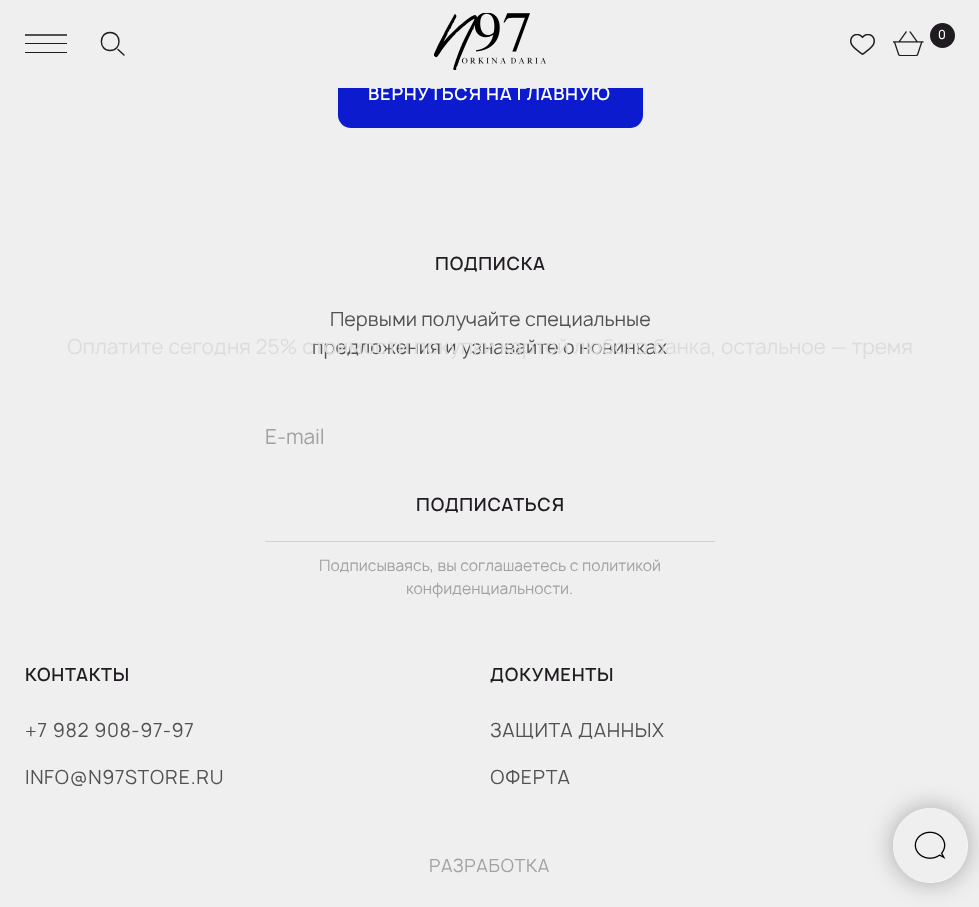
<!DOCTYPE html>
<meta charset="utf-8">
<style>body { margin: 0 } canvas { display: block }</style>
<canvas id="canvas" width="979" height="907"></canvas>
<img id="img1" src="images/2.png" hidden>
<img id="img2" src="images/3.png" hidden>
<img id="img3" src="images/4.png" hidden>
<img id="img4" src="images/1.png" hidden>
<script>
window.onload = function () {
    const canvas = document.getElementById('canvas');
    const context = canvas.getContext('2d');
    context.miterLimit = 4;
    context.fontKerning = 'normal';

    context.fillStyle = 'rgb(239, 239, 239)';
    context.fillRect(0, 0, 979, 907);
    context.beginPath();
    context.moveTo(25, 35);
    context.lineTo(67, 35);
    context.strokeStyle = 'rgb(31, 27, 32)';
    context.lineWidth = 1.4;
    context.stroke();
    context.fillStyle = 'rgb(31, 27, 32)';
    context.fillRect(25, 43, 42, 1);
    context.fillRect(25, 52, 42, 1);
    context.beginPath();
    context.moveTo(110, 50.5);
    context.bezierCurveTo(122, 50.5, 122, 32.5, 110, 32.5);
    context.bezierCurveTo(98.5, 32.5, 98.5, 50.5, 110, 50.5);
    context.closePath();
    context.moveTo(124, 55);
    context.lineTo(118, 49.5);
    context.lineCap = 'round';
    context.lineJoin = 'round';
    context.stroke();
    context.drawImage(document.getElementById('img1'), 850, 34, 25, 22);
    context.drawImage(document.getElementById('img2'), 893, 31, 31, 25);
    context.beginPath();
    context.arc(942.5, 35.5, 12.5, 0, 2 * Math.PI);
    context.fill();
    context.fillStyle = 'rgba(0, 0, 0, 0.3)';
    context.filter = 'blur(12.5px)';
    context.beginPath();
    context.roundRect(893, 808, 75, 75, 37.5);
    context.fill();
    context.filter = 'none';
    context.fillStyle = 'rgb(255, 255, 255)';
    context.beginPath();
    context.arc(930.5, 845.5, 37.5, 0, 2 * Math.PI);
    context.fill();
    context.drawImage(document.getElementById('img3'), 893, 808, 75, 75);
    context.fillStyle = 'rgb(11, 27, 205)';
    context.beginPath();
    context.roundRect(338, 59, 305, 69, 13);
    context.fill();
    context.fillStyle = 'rgb(209, 209, 209)';
    context.fillRect(265, 541, 450, 1);
    context.font = '500 12px Manrope';
    context.fillStyle = 'rgb(255, 255, 255)';
    context.fillText('0', 938, 39);
    context.letterSpacing = '0.6px';
    context.font = '600 17.5px Manrope';
    context.fillText('ВЕРНУТЬСЯ НА ГЛАВНУЮ', 368, 100);
    context.fillStyle = 'rgb(239, 239, 239)';
    context.fillRect(338, 59, 305, 29);
    context.drawImage(document.getElementById('img4'), 434, 13, 112, 57);
    context.fillStyle = 'rgb(31, 27, 32)';
    context.fillText('ПОДПИСКА', 435, 270);
    context.letterSpacing = '0px';
    context.font = '18.75px Manrope';
    context.fillStyle = 'rgb(83, 80, 84)';
    context.fillText('Первыми получайте специальные', 330, 326);
    context.fillText('предложения и узнавайте о новинках', 312, 354);
    context.font = '20px Manrope';
    context.fillStyle = 'rgb(161, 160, 162)';
    context.fillText('E-mail', 265, 444);
    context.letterSpacing = '0.6px';
    context.font = '600 17.5px Manrope';
    context.fillStyle = 'rgb(31, 27, 32)';
    context.fillText('ПОДПИСАТЬСЯ', 416, 511);
    context.letterSpacing = '0px';
    context.font = '15px Manrope';
    context.fillStyle = 'rgb(161, 160, 162)';
    context.fillText('Подписываясь, вы соглашаетесь с политикой', 319, 571);
    context.fillText('конфиденциальности.', 406, 594);
    context.letterSpacing = '0.6px';
    context.font = '600 17.5px Manrope';
    context.fillStyle = 'rgb(31, 27, 32)';
    context.fillText('КОНТАКТЫ', 25, 681);
    context.font = '18.75px Manrope';
    context.fillStyle = 'rgb(83, 80, 84)';
    context.fillText('+7 982 908-97-97', 25, 737);
    context.fillText('INFO@N97STORE.RU', 25, 784);
    context.font = '600 17.5px Manrope';
    context.fillStyle = 'rgb(31, 27, 32)';
    context.fillText('ДОКУМЕНТЫ', 490, 681);
    context.font = '18.75px Manrope';
    context.fillStyle = 'rgb(83, 80, 84)';
    context.fillText('ЗАЩИТА ДАННЫХ', 490, 737);
    context.fillText('ОФЕРТА', 490, 784);
    context.font = '17.5px Manrope';
    context.fillStyle = 'rgb(161, 160, 162)';
    context.fillText('РАЗРАБОТКА', 429, 872);
    context.letterSpacing = '0px';
    context.font = '20px Manrope';
    context.fillStyle = 'rgb(220, 220, 220)';
    context.fillText('Оплатите сегодня 25% стоимости покупки картой любого банка, остальное — тремя', 67, 354);
};
</script>
